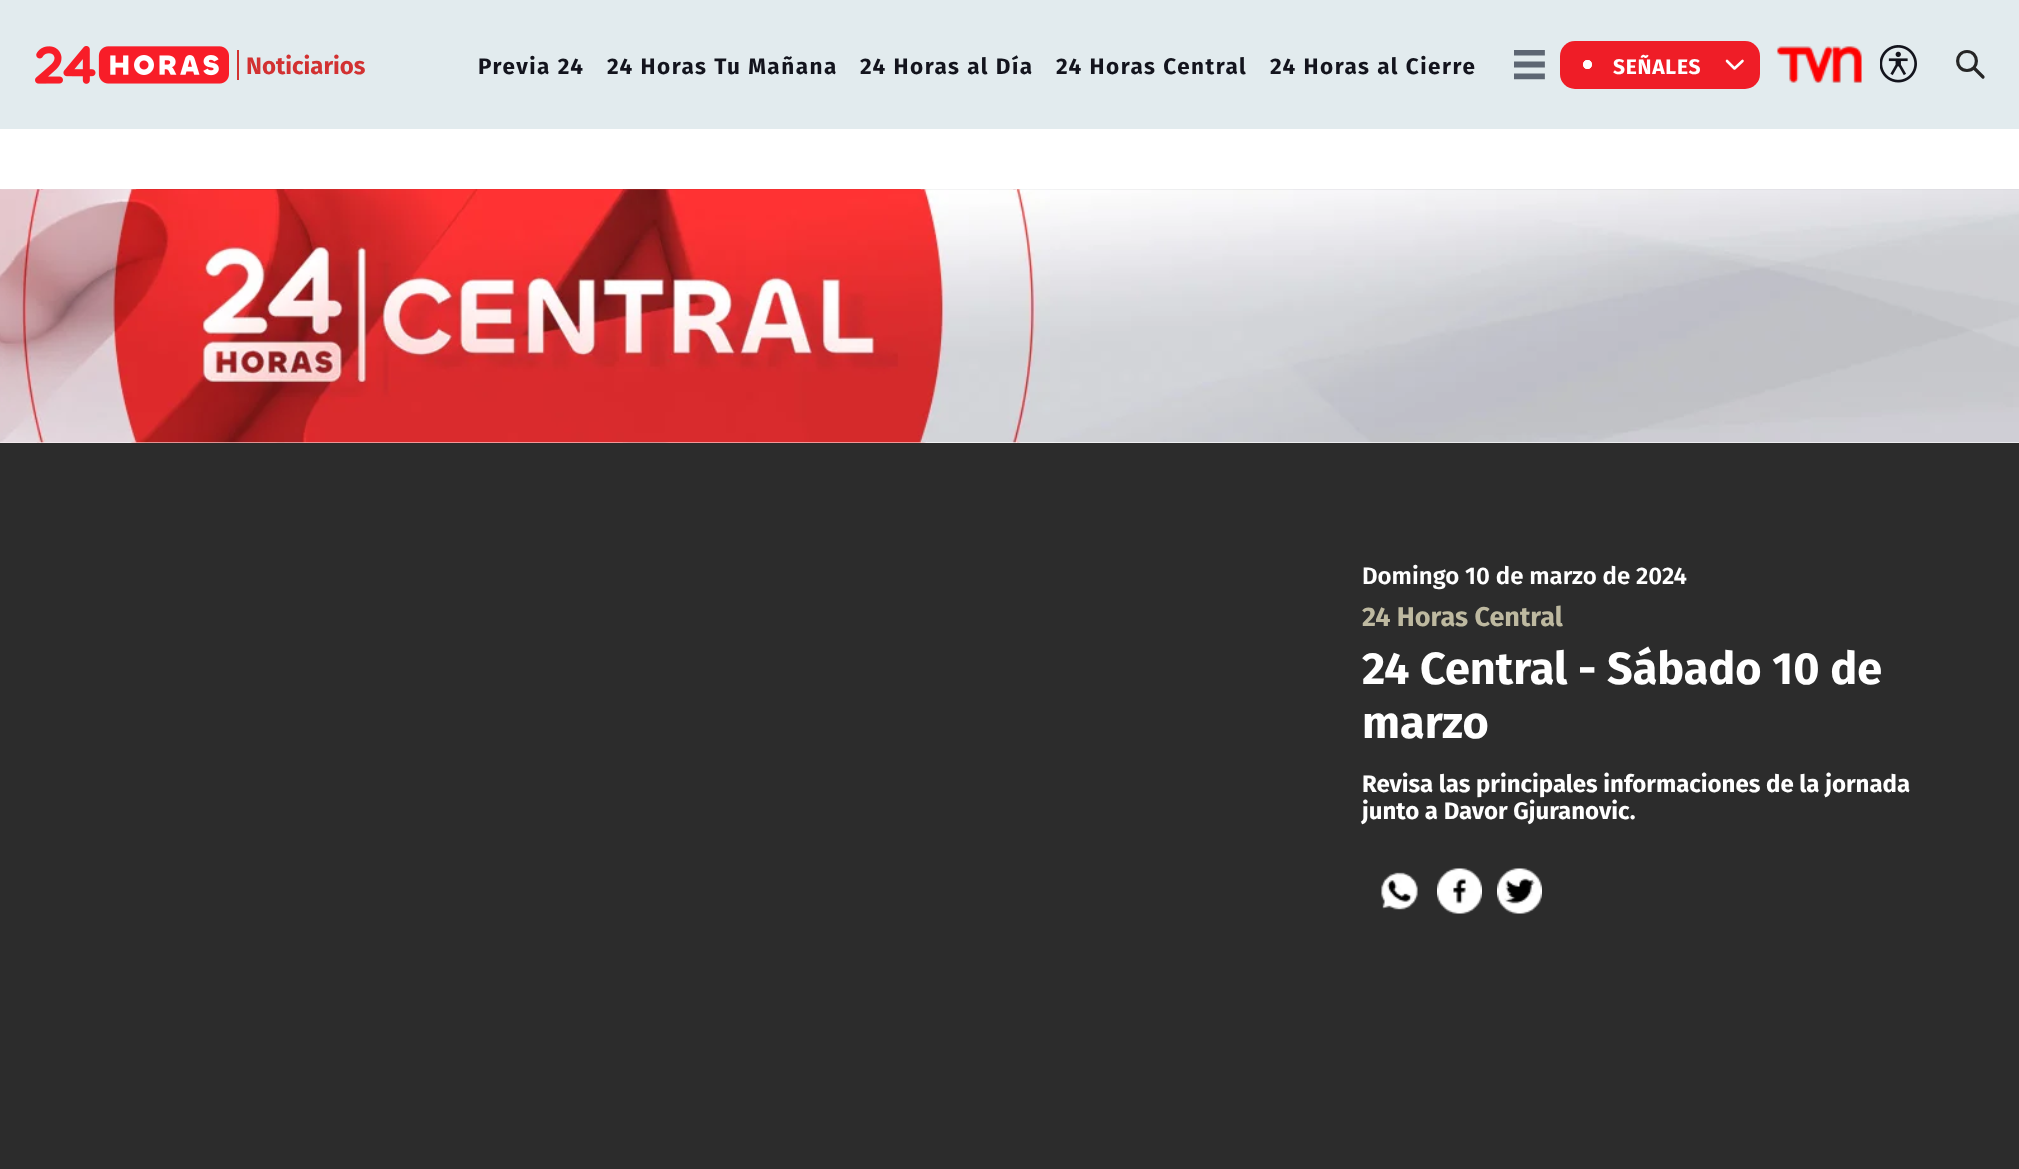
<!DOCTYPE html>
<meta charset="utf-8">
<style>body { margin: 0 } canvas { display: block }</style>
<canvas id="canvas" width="2019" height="1169"></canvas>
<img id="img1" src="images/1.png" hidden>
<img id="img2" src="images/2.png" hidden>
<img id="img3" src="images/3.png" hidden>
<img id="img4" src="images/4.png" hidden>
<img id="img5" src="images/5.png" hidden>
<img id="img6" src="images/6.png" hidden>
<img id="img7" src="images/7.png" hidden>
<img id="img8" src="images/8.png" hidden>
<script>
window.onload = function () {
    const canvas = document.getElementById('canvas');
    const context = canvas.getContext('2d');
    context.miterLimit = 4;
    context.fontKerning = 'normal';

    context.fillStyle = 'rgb(255, 255, 255)';
    context.fillRect(0, 0, 2019, 1169);
    context.fillStyle = 'rgb(226, 235, 238)';
    context.fillRect(0, 0, 2019, 129);
    context.drawImage(document.getElementById('img1'), 35, 46, 194, 38);
    context.fillStyle = 'rgb(210, 49, 49)';
    context.fillRect(237, 50, 2, 30);
    context.drawImage(document.getElementById('img2'), 1514, 50, 31, 30);
    context.fillStyle = 'rgb(239, 29, 39)';
    context.beginPath();
    context.roundRect(1560, 41, 200, 48, 15);
    context.fill();
    context.beginPath();
    context.arc(1587.5, 64.5, 3.5, 0, 2 * Math.PI);
    context.strokeStyle = 'rgb(255, 255, 255)';
    context.lineWidth = 2;
    context.stroke();
    context.fillStyle = 'rgb(255, 255, 255)';
    context.beginPath();
    context.arc(1587.5, 64.5, 3.5, 0, 2 * Math.PI);
    context.fill();
    context.stroke();
    context.beginPath();
    context.moveTo(1727, 61);
    context.lineTo(1734.5, 68.5);
    context.lineTo(1742.5, 61);
    context.lineWidth = 2.6;
    context.lineCap = 'round';
    context.lineJoin = 'round';
    context.stroke();
    context.drawImage(document.getElementById('img3'), 1776, 46, 86, 37);
    context.drawImage(document.getElementById('img4'), 1880, 45, 37, 38);
    context.beginPath();
    context.moveTo(1974, 68);
    context.lineTo(1983, 77);
    context.moveTo(1967, 70.5);
    context.bezierCurveTo(1979.5, 70.5, 1979.5, 51.5, 1967, 51.5);
    context.bezierCurveTo(1954.5, 51.5, 1954.5, 70.5, 1967, 70.5);
    context.closePath();
    context.strokeStyle = 'rgb(38, 38, 38)';
    context.lineWidth = 3.2;
    context.stroke();
    context.drawImage(document.getElementById('img5'), 0, 189, 2019, 254);
    context.fillStyle = 'rgb(44, 44, 44)';
    context.fillRect(0, 443, 2019, 726);
    context.drawImage(document.getElementById('img6'), 1381, 872, 37, 38);
    context.drawImage(document.getElementById('img7'), 1437, 868, 45, 46);
    context.drawImage(document.getElementById('img8'), 1497, 868, 45, 46);
    context.font = 'bold 24px Fira Sans';
    context.fillStyle = 'rgb(210, 49, 49)';
    context.fillText('Noticiarios', 246, 74);
    context.letterSpacing = '1.5px';
    context.font = 'bold 22.5px Fira Sans';
    context.fillStyle = 'rgb(19, 20, 29)';
    context.fillText('Previa 24', 478, 74);
    context.fillText('24 Horas Tu Mañana', 607, 74);
    context.fillText('24 Horas al Día', 860, 74);
    context.fillText('24 Horas Central', 1056, 74);
    context.fillText('24 Horas al Cierre', 1270, 74);
    context.letterSpacing = '0.75px';
    context.font = 'bold 21px Fira Sans';
    context.fillStyle = 'rgb(255, 255, 255)';
    context.fillText('SEÑALES', 1613, 74);
    context.letterSpacing = '0px';
    context.font = '600 24px Fira Sans';
    context.fillText('Domingo 10 de marzo de 2024', 1362, 584);
    context.font = 'bold 27px Fira Sans';
    context.fillStyle = 'rgb(190, 185, 160)';
    context.fillText('24 Horas Central', 1362, 626);
    context.font = 'bold 45px Fira Sans';
    context.fillStyle = 'rgb(255, 255, 255)';
    context.fillText('24 Central - Sábado 10 de', 1362, 684);
    context.fillText('marzo', 1362, 738);
    context.font = 'bold 24px Fira Sans';
    context.fillText('Revisa las principales informaciones de la jornada', 1362, 792);
    context.fillText('junto a Davor Gjuranovic.', 1362, 819);
};
</script>
